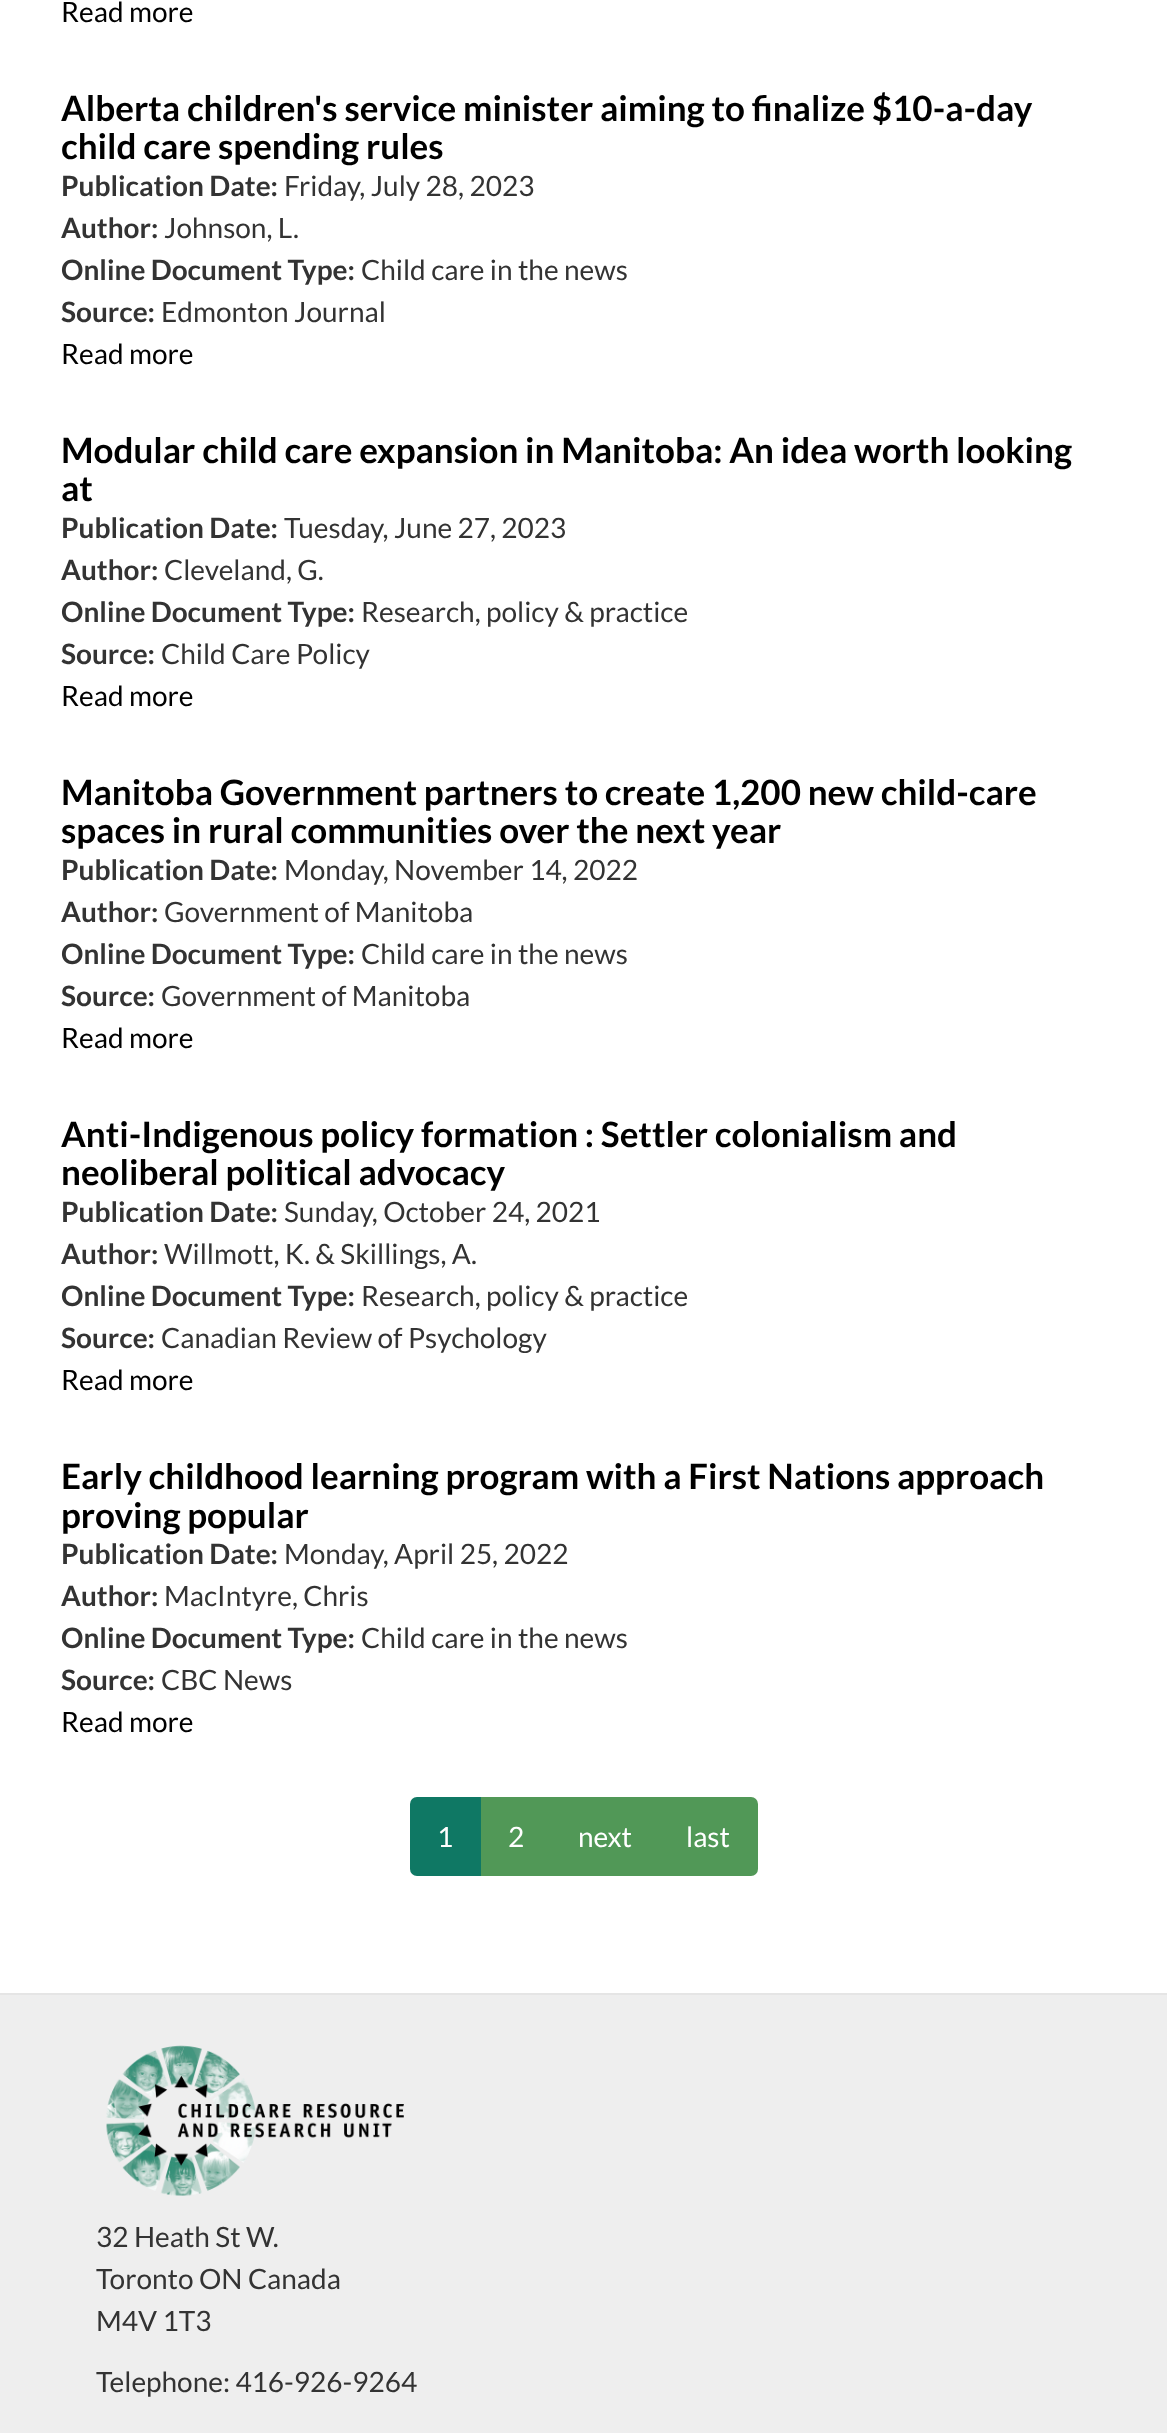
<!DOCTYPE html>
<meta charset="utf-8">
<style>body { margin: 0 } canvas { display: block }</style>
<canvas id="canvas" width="1167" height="2433"></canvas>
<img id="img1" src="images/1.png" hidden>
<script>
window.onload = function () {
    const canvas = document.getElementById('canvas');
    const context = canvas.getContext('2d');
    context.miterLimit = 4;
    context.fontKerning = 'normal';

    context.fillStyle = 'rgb(255, 255, 255)';
    context.fillRect(0, 0, 1167, 2433);
    context.fillStyle = 'rgb(15, 120, 100)';
    context.beginPath();
    context.roundRect(410, 1797, 71, 79, [7, 0, 0, 7]);
    context.fill();
    context.fillStyle = 'rgb(81, 152, 87)';
    context.fillRect(481, 1797, 177, 79);
    context.beginPath();
    context.roundRect(658, 1797, 100, 79, [0, 7, 7, 0]);
    context.fill();
    context.fillStyle = 'rgb(238, 238, 238)';
    context.fillRect(0, 1995, 1167, 438);
    context.fillStyle = 'rgb(229, 229, 229)';
    context.fillRect(0, 1993, 1167, 2);
    context.drawImage(document.getElementById('img1'), 106, 2045, 298, 151);
    context.font = '28px Lato';
    context.fillStyle = 'rgb(0, 0, 0)';
    context.fillText('Read more', 61, 22);
    context.font = 'bold 35px Lato';
    context.fillText('Alberta children\'s service minister aiming to finalize $10-a-day', 61, 121);
    context.fillText('child care spending rules', 61, 159);
    context.font = 'bold 28px Lato';
    context.fillStyle = 'rgb(51, 51, 51)';
    context.fillText('Publication Date:', 61, 196);
    context.font = '28px Lato';
    context.fillText('Friday, July 28, 2023', 284, 196);
    context.font = 'bold 28px Lato';
    context.fillText('Author:', 61, 238);
    context.font = '28px Lato';
    context.fillText('Johnson, L.', 164, 238);
    context.font = 'bold 28px Lato';
    context.fillText('Online Document Type:', 61, 280);
    context.font = '28px Lato';
    context.fillText('Child care in the news', 361, 280);
    context.font = 'bold 28px Lato';
    context.fillText('Source:', 61, 322);
    context.font = '28px Lato';
    context.fillText('Edmonton Journal', 161, 322);
    context.fillStyle = 'rgb(0, 0, 0)';
    context.fillText('Read more', 61, 364);
    context.font = 'bold 35px Lato';
    context.fillText('Modular child care expansion in Manitoba: An idea worth looking', 61, 463);
    context.fillText('at', 61, 501);
    context.font = 'bold 28px Lato';
    context.fillStyle = 'rgb(51, 51, 51)';
    context.fillText('Publication Date:', 61, 538);
    context.font = '28px Lato';
    context.fillText('Tuesday, June 27, 2023', 284, 538);
    context.font = 'bold 28px Lato';
    context.fillText('Author:', 61, 580);
    context.font = '28px Lato';
    context.fillText('Cleveland, G.', 164, 580);
    context.font = 'bold 28px Lato';
    context.fillText('Online Document Type:', 61, 622);
    context.font = '28px Lato';
    context.fillText('Research, policy & practice', 361, 622);
    context.font = 'bold 28px Lato';
    context.fillText('Source:', 61, 664);
    context.font = '28px Lato';
    context.fillText('Child Care Policy', 161, 664);
    context.fillStyle = 'rgb(0, 0, 0)';
    context.fillText('Read more', 61, 706);
    context.font = 'bold 35px Lato';
    context.fillText('Manitoba Government partners to create 1,200 new child-care', 61, 805);
    context.fillText('spaces in rural communities over the next year', 61, 843);
    context.font = 'bold 28px Lato';
    context.fillStyle = 'rgb(51, 51, 51)';
    context.fillText('Publication Date:', 61, 880);
    context.font = '28px Lato';
    context.fillText('Monday, November 14, 2022', 284, 880);
    context.font = 'bold 28px Lato';
    context.fillText('Author:', 61, 922);
    context.font = '28px Lato';
    context.fillText('Government of Manitoba', 164, 922);
    context.font = 'bold 28px Lato';
    context.fillText('Online Document Type:', 61, 964);
    context.font = '28px Lato';
    context.fillText('Child care in the news', 361, 964);
    context.font = 'bold 28px Lato';
    context.fillText('Source:', 61, 1006);
    context.font = '28px Lato';
    context.fillText('Government of Manitoba', 161, 1006);
    context.fillStyle = 'rgb(0, 0, 0)';
    context.fillText('Read more', 61, 1048);
    context.font = 'bold 35px Lato';
    context.fillText('Anti-Indigenous policy formation : Settler colonialism and', 61, 1147);
    context.fillText('neoliberal political advocacy', 61, 1185);
    context.font = 'bold 28px Lato';
    context.fillStyle = 'rgb(51, 51, 51)';
    context.fillText('Publication Date:', 61, 1222);
    context.font = '28px Lato';
    context.fillText('Sunday, October 24, 2021', 284, 1222);
    context.font = 'bold 28px Lato';
    context.fillText('Author:', 61, 1264);
    context.font = '28px Lato';
    context.fillText('Willmott, K. & Skillings, A.', 164, 1264);
    context.font = 'bold 28px Lato';
    context.fillText('Online Document Type:', 61, 1306);
    context.font = '28px Lato';
    context.fillText('Research, policy & practice', 361, 1306);
    context.font = 'bold 28px Lato';
    context.fillText('Source:', 61, 1348);
    context.font = '28px Lato';
    context.fillText('Canadian Review of Psychology', 161, 1348);
    context.fillStyle = 'rgb(0, 0, 0)';
    context.fillText('Read more', 61, 1390);
    context.font = 'bold 35px Lato';
    context.fillText('Early childhood learning program with a First Nations approach', 61, 1489);
    context.fillText('proving popular', 61, 1528);
    context.font = 'bold 28px Lato';
    context.fillStyle = 'rgb(51, 51, 51)';
    context.fillText('Publication Date:', 61, 1564);
    context.font = '28px Lato';
    context.fillText('Monday, April 25, 2022', 284, 1564);
    context.font = 'bold 28px Lato';
    context.fillText('Author:', 61, 1606);
    context.font = '28px Lato';
    context.fillText('MacIntyre, Chris', 164, 1606);
    context.font = 'bold 28px Lato';
    context.fillText('Online Document Type:', 61, 1648);
    context.font = '28px Lato';
    context.fillText('Child care in the news', 361, 1648);
    context.font = 'bold 28px Lato';
    context.fillText('Source:', 61, 1690);
    context.font = '28px Lato';
    context.fillText('CBC News', 161, 1690);
    context.fillStyle = 'rgb(0, 0, 0)';
    context.fillText('Read more', 61, 1732);
    context.fillStyle = 'rgb(255, 255, 255)';
    context.fillText('1', 437, 1847);
    context.fillText('2', 508, 1847);
    context.fillText('next', 578, 1847);
    context.fillText('last', 686, 1847);
    context.fillStyle = 'rgb(51, 51, 51)';
    context.fillText('32 Heath St W.', 96, 2247);
    context.fillText('Toronto ON Canada', 96, 2289);
    context.fillText('M4V 1T3', 96, 2331);
    context.fillText('Telephone: 416-926-9264', 96, 2392);
};
</script>
